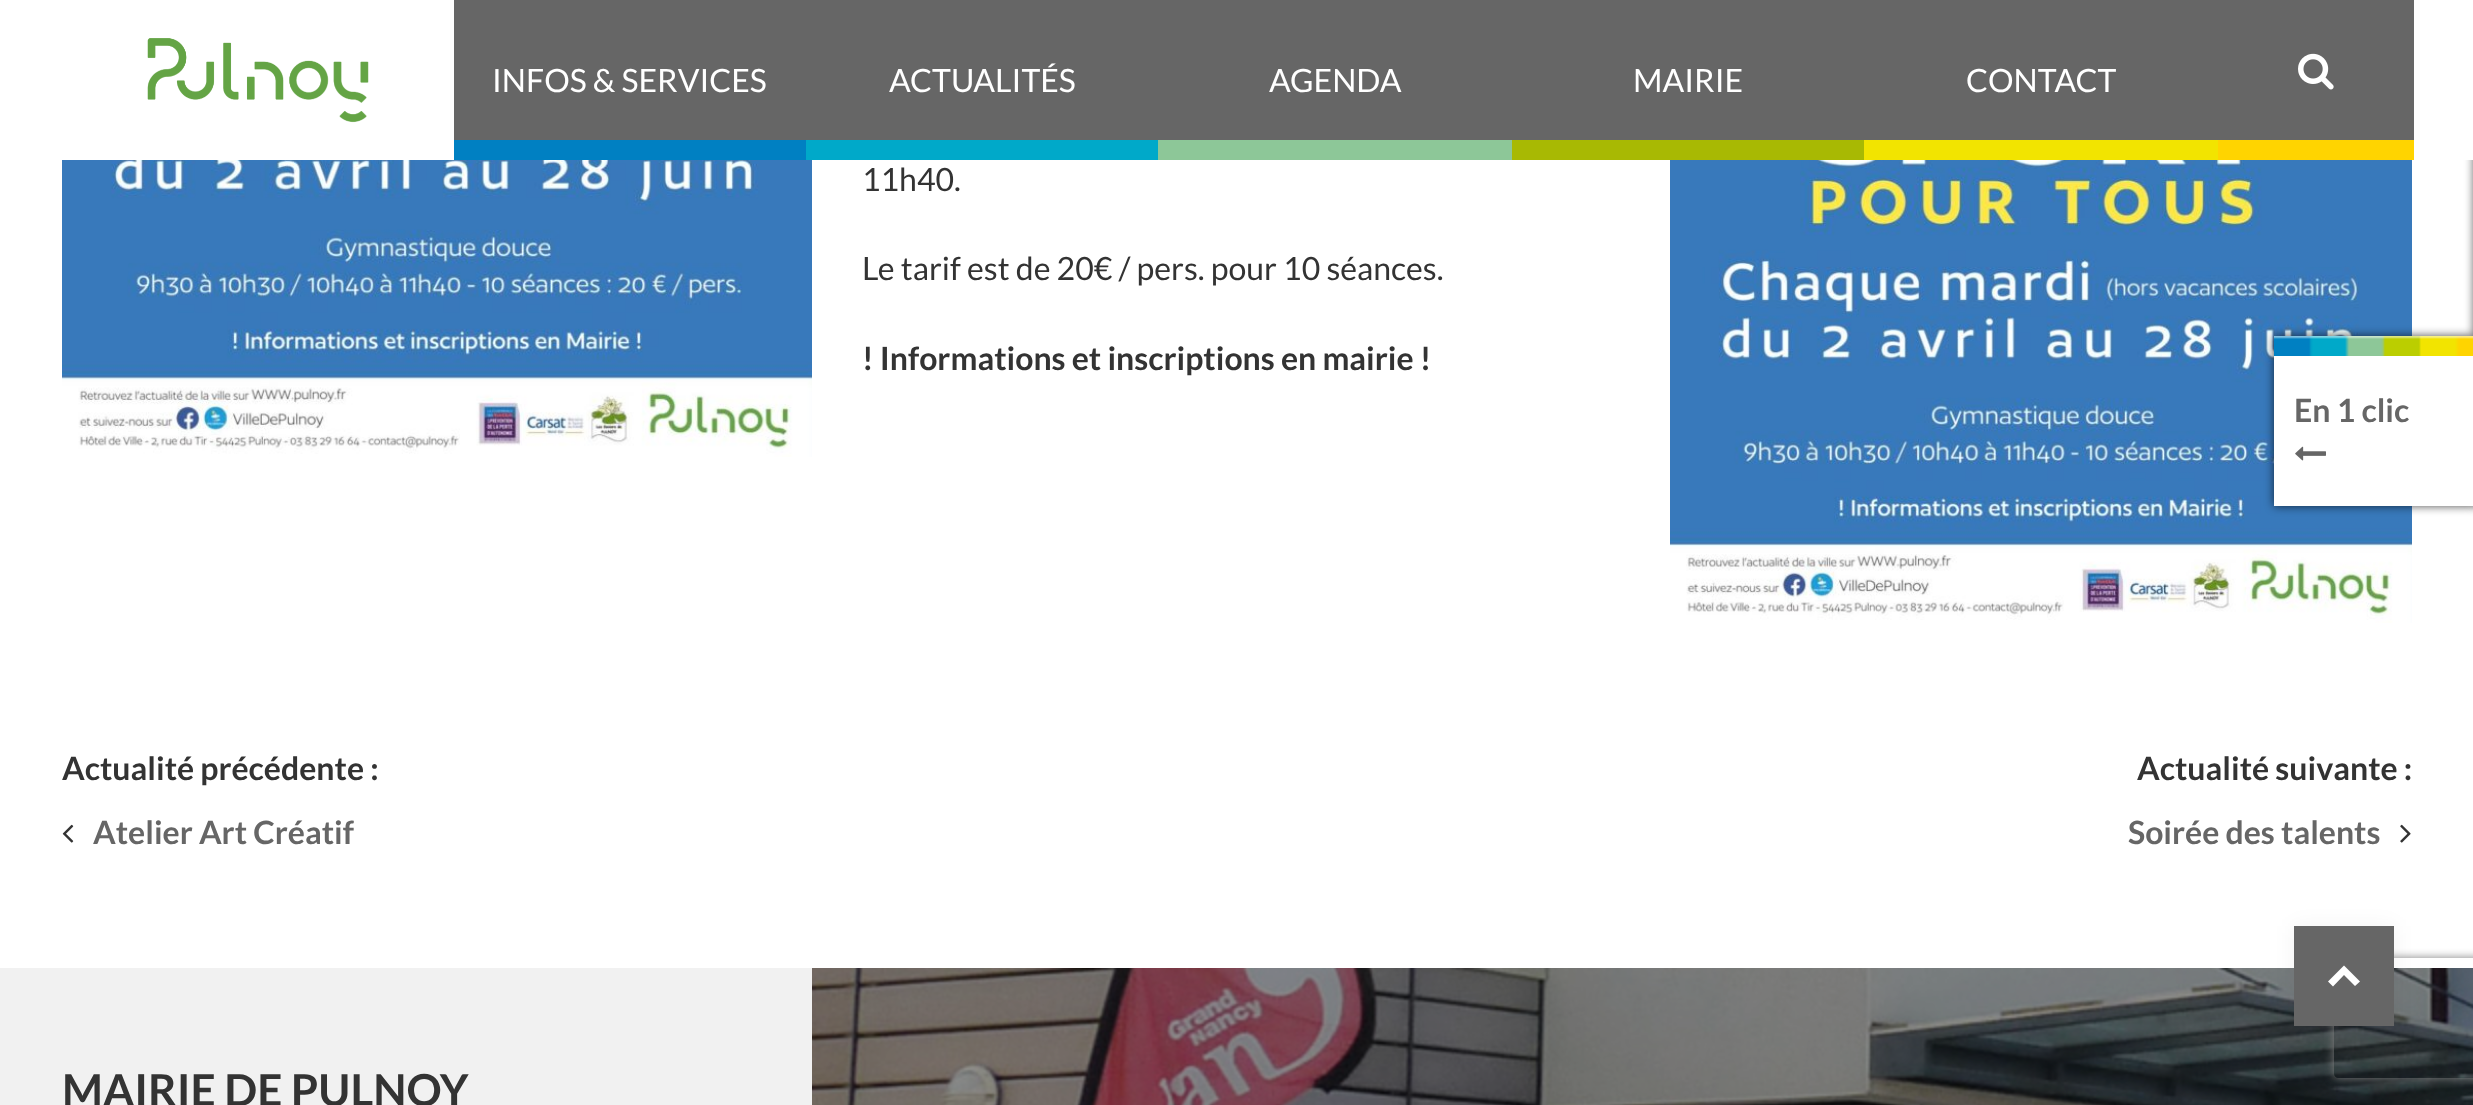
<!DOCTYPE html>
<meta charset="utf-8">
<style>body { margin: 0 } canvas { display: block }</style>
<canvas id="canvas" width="2473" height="1105"></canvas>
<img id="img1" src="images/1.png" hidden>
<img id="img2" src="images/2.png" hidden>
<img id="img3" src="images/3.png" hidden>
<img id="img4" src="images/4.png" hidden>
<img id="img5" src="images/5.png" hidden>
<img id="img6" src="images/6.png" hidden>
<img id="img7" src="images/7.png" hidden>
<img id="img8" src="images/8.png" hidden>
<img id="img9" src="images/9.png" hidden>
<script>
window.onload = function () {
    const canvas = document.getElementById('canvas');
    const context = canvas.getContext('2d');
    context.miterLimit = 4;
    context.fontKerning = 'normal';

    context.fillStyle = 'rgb(255, 255, 255)';
    context.fillRect(0, 0, 2473, 1105);
    context.drawImage(document.getElementById('img1'), 147, 38, 222, 85);
    context.fillStyle = 'rgb(102, 102, 102)';
    context.fillRect(454, 0, 1960, 140);
    context.fillStyle = 'rgb(0, 128, 194)';
    context.fillRect(454, 140, 352, 20);
    context.fillStyle = 'rgb(0, 169, 201)';
    context.fillRect(806, 140, 352, 20);
    context.fillStyle = 'rgb(141, 199, 152)';
    context.fillRect(1158, 140, 354, 20);
    context.fillStyle = 'rgb(168, 185, 3)';
    context.fillRect(1512, 140, 352, 20);
    context.fillStyle = 'rgb(242, 228, 0)';
    context.fillRect(1864, 140, 354, 20);
    context.drawImage(document.getElementById('img2'), 2298, 53, 36, 37);
    context.fillStyle = 'rgb(255, 212, 0)';
    context.fillRect(2218, 140, 196, 20);
    context.fillStyle = 'rgba(0, 0, 0, 0.7)';
    context.filter = 'blur(5px)';
    context.beginPath();
    context.rect(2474, -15, 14, 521);
    context.fill();
    context.filter = 'none';
    context.fillStyle = 'rgb(255, 255, 255)';
    context.fillRect(2463, 0, 10, 160);
    context.drawImage(document.getElementById('img3'), 62, 160, 750, 297);
    context.drawImage(document.getElementById('img4'), 1670, 160, 742, 463);
    context.drawImage(document.getElementById('img5'), 62, 824, 12, 19);
    context.drawImage(document.getElementById('img6'), 2400, 824, 11, 19);
    context.fillStyle = 'rgba(0, 0, 0, 0.7)';
    context.filter = 'blur(5px)';
    context.beginPath();
    context.rect(2274, 336, 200, 170);
    context.fill();
    context.filter = 'none';
    context.fillStyle = 'rgb(255, 255, 255)';
    context.fillRect(2274, 336, 199, 170);
    context.drawImage(document.getElementById('img7'), 2274, 336, 199, 20);
    context.drawImage(document.getElementById('img8'), 2295, 446, 31, 15);
    context.drawImage(document.getElementById('img9'), 812, 968, 1661, 137);
    context.fillStyle = 'rgba(0, 0, 0, 0.05)';
    context.filter = 'blur(10px)';
    context.beginPath();
    context.rect(2294, 926, 100, 100);
    context.fill();
    context.filter = 'none';
    context.save();
    context.beginPath();
    context.moveTo(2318, 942);
    context.lineTo(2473, 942);
    context.lineTo(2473, 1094);
    context.lineTo(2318, 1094);
    context.closePath();
    context.moveTo(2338, 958);
    context.lineTo(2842, 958);
    context.bezierCurveTo(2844, 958, 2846, 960, 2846, 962);
    context.lineTo(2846, 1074);
    context.bezierCurveTo(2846, 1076, 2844, 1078, 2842, 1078);
    context.lineTo(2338, 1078);
    context.bezierCurveTo(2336, 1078, 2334, 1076, 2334, 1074);
    context.lineTo(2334, 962);
    context.bezierCurveTo(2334, 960, 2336, 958, 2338, 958);
    context.closePath();
    context.clip('evenodd');
    context.fillStyle = 'rgb(128, 128, 128)';
    context.filter = 'blur(5px)';
    context.beginPath();
    context.roundRect(2334, 958, 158, 120, 4);
    context.fill();
    context.filter = 'none';
    context.restore();
    context.fillStyle = 'rgb(102, 102, 102)';
    context.fillRect(2294, 926, 100, 100);
    context.fillStyle = 'rgb(255, 255, 255)';
    context.beginPath();
    context.moveTo(2344, 965.5);
    context.lineTo(2360, 981.5);
    context.lineTo(2355, 986);
    context.lineTo(2344, 975);
    context.lineTo(2333, 986.5);
    context.lineTo(2328, 981.5);
    context.closePath();
    context.fill();
    context.fillStyle = 'rgb(241, 241, 241)';
    context.fillRect(0, 968, 812, 137);
    context.font = '32px Lato';
    context.fillStyle = 'rgb(255, 255, 255)';
    context.fillText('INFOS & SERVICES', 492, 92);
    context.fillText('ACTUALITÉS', 889, 92);
    context.fillText('AGENDA', 1269, 92);
    context.fillText('MAIRIE', 1633, 92);
    context.fillText('CONTACT', 1966, 92);
    context.fillStyle = 'rgb(51, 51, 51)';
    context.fillText('11h40.', 862, 191);
    context.fillText('Le tarif est de 20€ / pers. pour 10 séances.', 862, 280);
    context.font = 'bold 32px Lato';
    context.fillText('! Informations et inscriptions en mairie !', 862, 370);
    context.fillText('Actualité précédente :', 62, 780);
    context.fillStyle = 'rgb(102, 102, 102)';
    context.fillText('Atelier Art Créatif', 93, 844);
    context.fillStyle = 'rgb(51, 51, 51)';
    context.fillText('Actualité suivante :', 2137, 780);
    context.fillStyle = 'rgb(102, 102, 102)';
    context.fillText('Soirée des talents', 2128, 844);
    context.fillText('En 1 clic', 2294, 422);
    context.font = 'bold 44px Lato';
    context.fillStyle = 'rgb(51, 51, 51)';
    context.fillText('MAIRIE DE PULNOY', 62, 1106);
};
</script>
